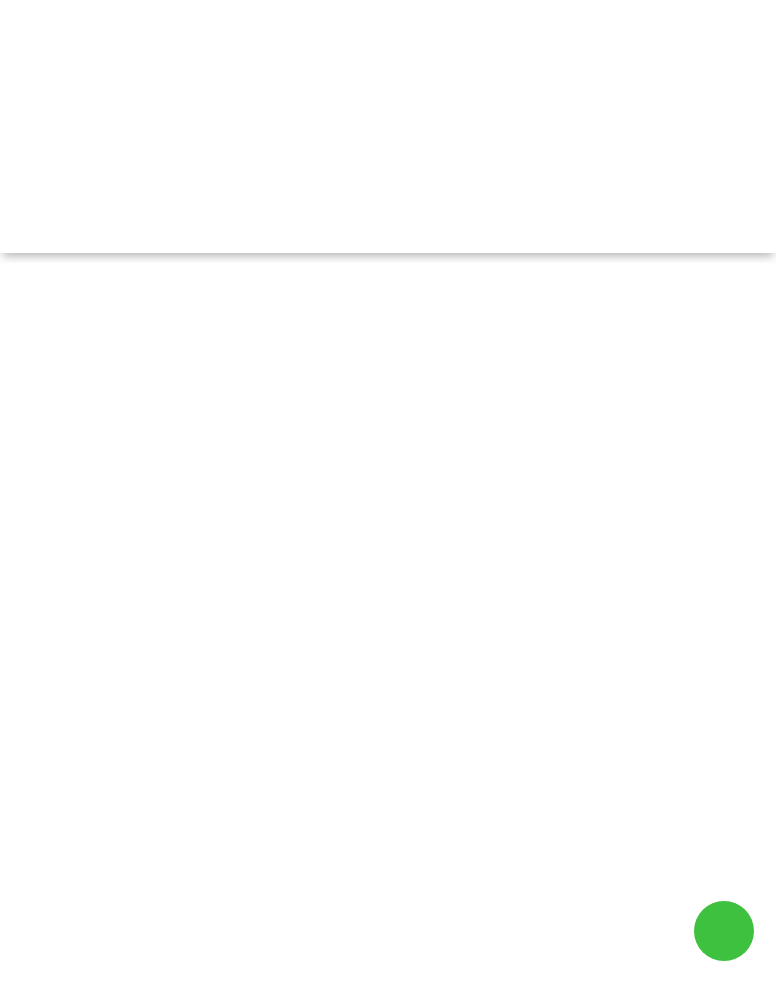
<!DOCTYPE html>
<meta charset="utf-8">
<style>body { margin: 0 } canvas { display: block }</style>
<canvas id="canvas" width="776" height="982"></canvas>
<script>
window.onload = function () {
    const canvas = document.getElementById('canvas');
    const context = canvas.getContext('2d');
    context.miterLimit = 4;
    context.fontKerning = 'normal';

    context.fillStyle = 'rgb(255, 255, 255)';
    context.fillRect(0, 0, 776, 982);
    context.save();
    context.beginPath();
    context.rect(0, 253, 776, 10);
    context.clip();
    context.fillStyle = 'rgba(0, 0, 0, 0.3)';
    context.filter = 'blur(5px)';
    context.beginPath();
    context.rect(3, 44, 770, 212);
    context.fill();
    context.filter = 'none';
    context.restore();
    context.fillStyle = 'rgb(61, 193, 63)';
    context.beginPath();
    context.arc(724, 931, 30, 0, 2 * Math.PI);
    context.fill();
};
</script>
